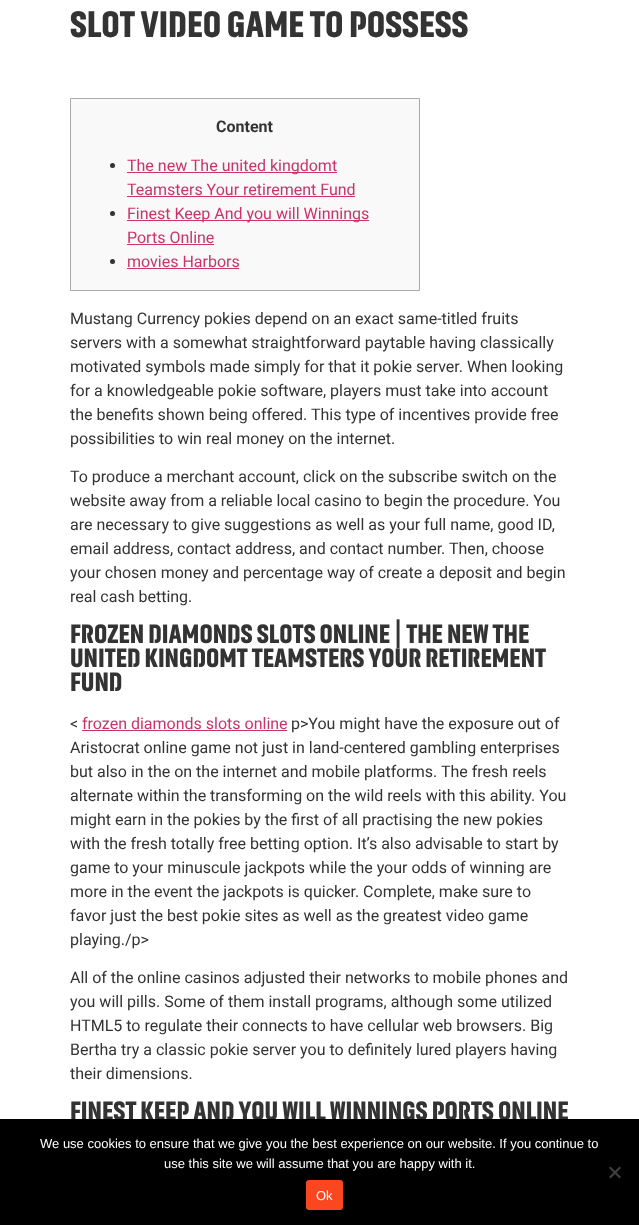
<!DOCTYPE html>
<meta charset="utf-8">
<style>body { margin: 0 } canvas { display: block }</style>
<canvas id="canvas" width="639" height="1225"></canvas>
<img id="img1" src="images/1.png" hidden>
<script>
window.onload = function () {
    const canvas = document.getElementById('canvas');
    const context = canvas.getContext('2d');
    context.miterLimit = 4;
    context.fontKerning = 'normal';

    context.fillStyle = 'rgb(255, 255, 255)';
    context.fillRect(0, 0, 639, 1225);
    context.fillStyle = 'rgb(249, 249, 249)';
    context.beginPath();
    context.rect(70.5, 98.5, 349, 192);
    context.fill();
    context.strokeStyle = 'rgb(170, 170, 170)';
    context.stroke();
    context.fillStyle = 'rgb(51, 51, 51)';
    context.beginPath();
    context.arc(112.5, 165.5, 2.5, 0, 2 * Math.PI);
    context.fill();
    context.fillStyle = 'rgb(204, 51, 102)';
    context.fillRect(127, 172, 210, 1);
    context.fillRect(127, 196, 228, 1);
    context.fillStyle = 'rgb(51, 51, 51)';
    context.beginPath();
    context.arc(112.5, 213.5, 2.5, 0, 2 * Math.PI);
    context.fill();
    context.fillStyle = 'rgb(204, 51, 102)';
    context.fillRect(127, 220, 242, 1);
    context.fillRect(127, 244, 87, 1);
    context.fillStyle = 'rgb(51, 51, 51)';
    context.beginPath();
    context.arc(112.5, 261.5, 2.5, 0, 2 * Math.PI);
    context.fill();
    context.fillStyle = 'rgb(204, 51, 102)';
    context.fillRect(127, 268, 112, 1);
    context.fillRect(82, 730, 205, 1);
    context.drawImage(document.getElementById('img1'), 71, 47, 111, 28);
    context.font = 'bold 37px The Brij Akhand';
    context.fillStyle = 'rgb(51, 51, 51)';
    context.fillText('SLOT VIDEO GAME TO POSSESS', 70, 37);
    context.font = 'bold 16px Roboto';
    context.fillText('Content', 216, 132);
    context.font = '16px Roboto';
    context.fillStyle = 'rgb(204, 51, 102)';
    context.fillText('The new The united kingdomt', 127, 171);
    context.fillText('Teamsters Your retirement Fund', 127, 195);
    context.fillText('Finest Keep And you will Winnings', 127, 219);
    context.fillText('Ports Online', 127, 243);
    context.fillText('movies Harbors', 127, 267);
    context.fillStyle = 'rgb(51, 51, 51)';
    context.fillText('Mustang Currency pokies depend on an exact same-titled fruits', 70, 324);
    context.fillText('servers with a somewhat straightforward paytable having classically', 70, 348);
    context.fillText('motivated symbols made simply for that it pokie server. When looking', 70, 372);
    context.fillText('for a knowledgeable pokie software, players must take into account', 70, 396);
    context.fillText('the benefits shown being offered. This type of incentives provide free', 70, 420);
    context.fillText('possibilities to win real money on the internet.', 70, 444);
    context.fillText('To produce a merchant account, click on the subscribe switch on the', 70, 482);
    context.fillText('website away from a reliable local casino to begin the procedure. You', 70, 506);
    context.fillText('are necessary to give suggestions as well as your full name, good ID,', 70, 530);
    context.fillText('email address, contact address, and contact number. Then, choose', 70, 554);
    context.fillText('your chosen money and percentage way of create a deposit and begin', 70, 578);
    context.fillText('real cash betting.', 70, 602);
    context.font = 'bold 26.6px The Brij Akhand';
    context.fillText('FROZEN DIAMONDS SLOTS ONLINE | THE NEW THE', 70, 643);
    context.fillText('UNITED KINGDOMT TEAMSTERS YOUR RETIREMENT', 70, 667);
    context.fillText('FUND', 70, 691);
    context.font = '16px Roboto';
    context.fillText('<', 70, 729);
    context.fillStyle = 'rgb(204, 51, 102)';
    context.fillText('frozen diamonds slots online', 82, 729);
    context.fillStyle = 'rgb(51, 51, 51)';
    context.fillText('p>You might have the exposure out of', 291, 729);
    context.fillText('Aristocrat online game not just in land-centered gambling enterprises', 70, 753);
    context.fillText('but also in the on the internet and mobile platforms. The fresh reels', 70, 777);
    context.fillText('alternate within the transforming on the wild reels with this ability. You', 70, 801);
    context.fillText('might earn in the pokies by the first of all practising the new pokies', 70, 825);
    context.fillText('with the fresh totally free betting option. It’s also advisable to start by', 70, 849);
    context.fillText('game to your minuscule jackpots while the your odds of winning are', 70, 873);
    context.fillText('more in the event the jackpots is quicker. Complete, make sure to', 70, 897);
    context.fillText('favor just the best pokie sites as well as the greatest video game', 70, 921);
    context.fillText('playing./p>', 70, 945);
    context.fillText('All of the online casinos adjusted their networks to mobile phones and', 70, 983);
    context.fillText('you will pills. Some of them install programs, although some utilized', 70, 1007);
    context.fillText('HTML5 to regulate their connects to have cellular web browsers. Big', 70, 1031);
    context.fillText('Bertha try a classic pokie server you to definitely lured players having', 70, 1055);
    context.fillText('their dimensions.', 70, 1079);
    context.font = 'bold 26.6px The Brij Akhand';
    context.fillText('FINEST KEEP AND YOU WILL WINNINGS PORTS ONLINE', 70, 1120);
    context.fillStyle = 'rgb(0, 0, 0)';
    context.fillRect(0, 1119, 639, 106);
    context.font = '13px Liberation Sans';
    context.fillStyle = 'rgb(255, 255, 255)';
    context.fillText('We use cookies to ensure that we give you the best experience on our website. If you continue to', 40, 1148);
    context.fillText('use this site we will assume that you are happy with it.', 164, 1168);
    context.fillStyle = 'rgb(64, 64, 64)';
    context.beginPath();
    context.moveTo(619.5, 1166.5);
    context.lineTo(621, 1168);
    context.lineTo(610.5, 1178.5);
    context.lineTo(609, 1177);
    context.closePath();
    context.fill();
    context.beginPath();
    context.moveTo(609, 1168);
    context.lineTo(610.5, 1166.5);
    context.lineTo(621, 1177);
    context.lineTo(619.5, 1178.5);
    context.closePath();
    context.fill();
    context.fillStyle = 'rgb(251, 71, 31)';
    context.beginPath();
    context.roundRect(306, 1180, 37, 30, 3);
    context.fill();
    context.fillStyle = 'rgb(255, 255, 255)';
    context.fillText('Ok', 316, 1200);
};
</script>
